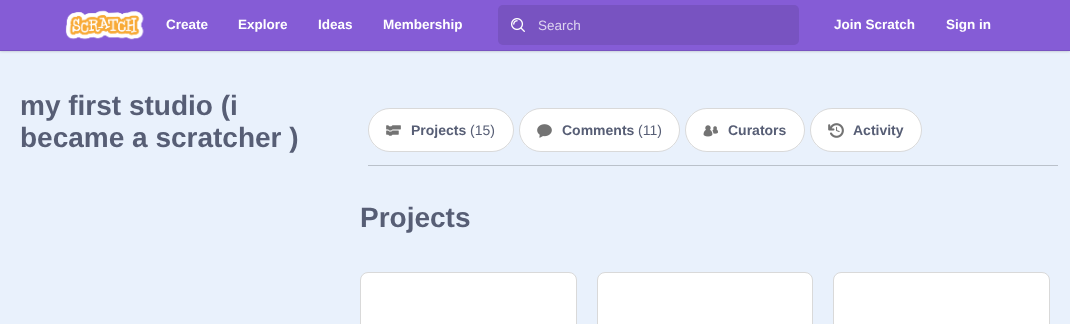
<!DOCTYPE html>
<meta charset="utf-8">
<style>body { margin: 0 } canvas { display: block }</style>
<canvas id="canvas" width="1070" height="324"></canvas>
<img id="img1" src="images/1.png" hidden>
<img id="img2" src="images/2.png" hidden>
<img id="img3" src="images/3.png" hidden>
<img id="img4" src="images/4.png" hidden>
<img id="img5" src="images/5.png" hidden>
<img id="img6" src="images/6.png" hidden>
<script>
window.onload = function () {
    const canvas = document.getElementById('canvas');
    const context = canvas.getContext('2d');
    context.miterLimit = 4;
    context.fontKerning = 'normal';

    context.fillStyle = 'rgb(233, 241, 252)';
    context.fillRect(0, 0, 1070, 324);
    context.fillStyle = 'rgba(0, 0, 0, 0.25)';
    context.filter = 'blur(1.5px)';
    context.beginPath();
    context.rect(0, 0, 1070, 51);
    context.fill();
    context.filter = 'none';
    context.fillStyle = 'rgb(133, 92, 214)';
    context.fillRect(0, 0, 1070, 50);
    context.fillStyle = 'rgb(120, 83, 193)';
    context.fillRect(0, 50, 1070, 1);
    context.drawImage(document.getElementById('img1'), 65, 10, 79, 30);
    context.beginPath();
    context.roundRect(498, 5, 301, 40, 5);
    context.fill();
    context.drawImage(document.getElementById('img2'), 511, 18, 14, 14);
    context.fillStyle = 'rgb(186, 193, 202)';
    context.fillRect(368, 165, 690, 1);
    context.fillStyle = 'rgb(255, 255, 255)';
    context.beginPath();
    context.roundRect(368, 108, 146, 44, 22);
    context.fill();
    context.beginPath();
    context.roundRect(368.5, 108.5, 145, 43, 21.5);
    context.strokeStyle = 'rgba(0, 0, 0, 0.15)';
    context.stroke();
    context.drawImage(document.getElementById('img3'), 386, 125, 15, 11);
    context.beginPath();
    context.roundRect(519, 108, 161, 44, 22);
    context.fill();
    context.beginPath();
    context.roundRect(519.5, 108.5, 160, 43, 21.5);
    context.stroke();
    context.drawImage(document.getElementById('img4'), 537, 124, 15, 14);
    context.beginPath();
    context.roundRect(685, 108, 120, 44, 22);
    context.fill();
    context.beginPath();
    context.roundRect(685.5, 108.5, 119, 43, 21.5);
    context.stroke();
    context.drawImage(document.getElementById('img5'), 703, 125, 15, 12);
    context.beginPath();
    context.roundRect(810, 108, 112, 44, 22);
    context.fill();
    context.beginPath();
    context.roundRect(810.5, 108.5, 111, 43, 21.5);
    context.stroke();
    context.drawImage(document.getElementById('img6'), 828, 123, 16, 15);
    context.beginPath();
    context.roundRect(360.5, 272.5, 216, 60, 7.5);
    context.fill();
    context.strokeStyle = 'rgb(217, 217, 217)';
    context.stroke();
    context.beginPath();
    context.roundRect(597.5, 272.5, 215, 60, 7.5);
    context.fill();
    context.stroke();
    context.beginPath();
    context.roundRect(833.5, 272.5, 216, 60, 7.5);
    context.fill();
    context.stroke();
    context.font = 'bold 13.5px Liberation Sans';
    context.fillText('Create', 166, 29);
    context.fillText('Explore', 238, 29);
    context.fillText('Ideas', 318, 29);
    context.fillText('Membership', 383, 29);
    context.font = '13.5px Liberation Sans';
    context.fillStyle = 'rgb(221, 212, 240)';
    context.fillText('Search', 538, 30);
    context.font = 'bold 13.5px Liberation Sans';
    context.fillStyle = 'rgb(255, 255, 255)';
    context.fillText('Join Scratch', 834, 29);
    context.fillText('Sign in', 946, 29);
    context.font = 'bold 28px Liberation Sans';
    context.fillStyle = 'rgb(87, 94, 117)';
    context.fillText('my first studio (i', 20, 115);
    context.fillText('became a scratcher )', 20, 147);
    context.font = 'bold 14px Liberation Sans';
    context.fillText('Projects', 411, 135);
    context.font = '14px Liberation Sans';
    context.fillText('(15)', 470, 135);
    context.font = 'bold 14px Liberation Sans';
    context.fillText('Comments', 562, 135);
    context.font = '14px Liberation Sans';
    context.fillText('(11)', 638, 135);
    context.font = 'bold 14px Liberation Sans';
    context.fillText('Curators', 728, 135);
    context.fillText('Activity', 853, 135);
    context.font = 'bold 28px Liberation Sans';
    context.fillText('Projects', 360, 227);
};
</script>
